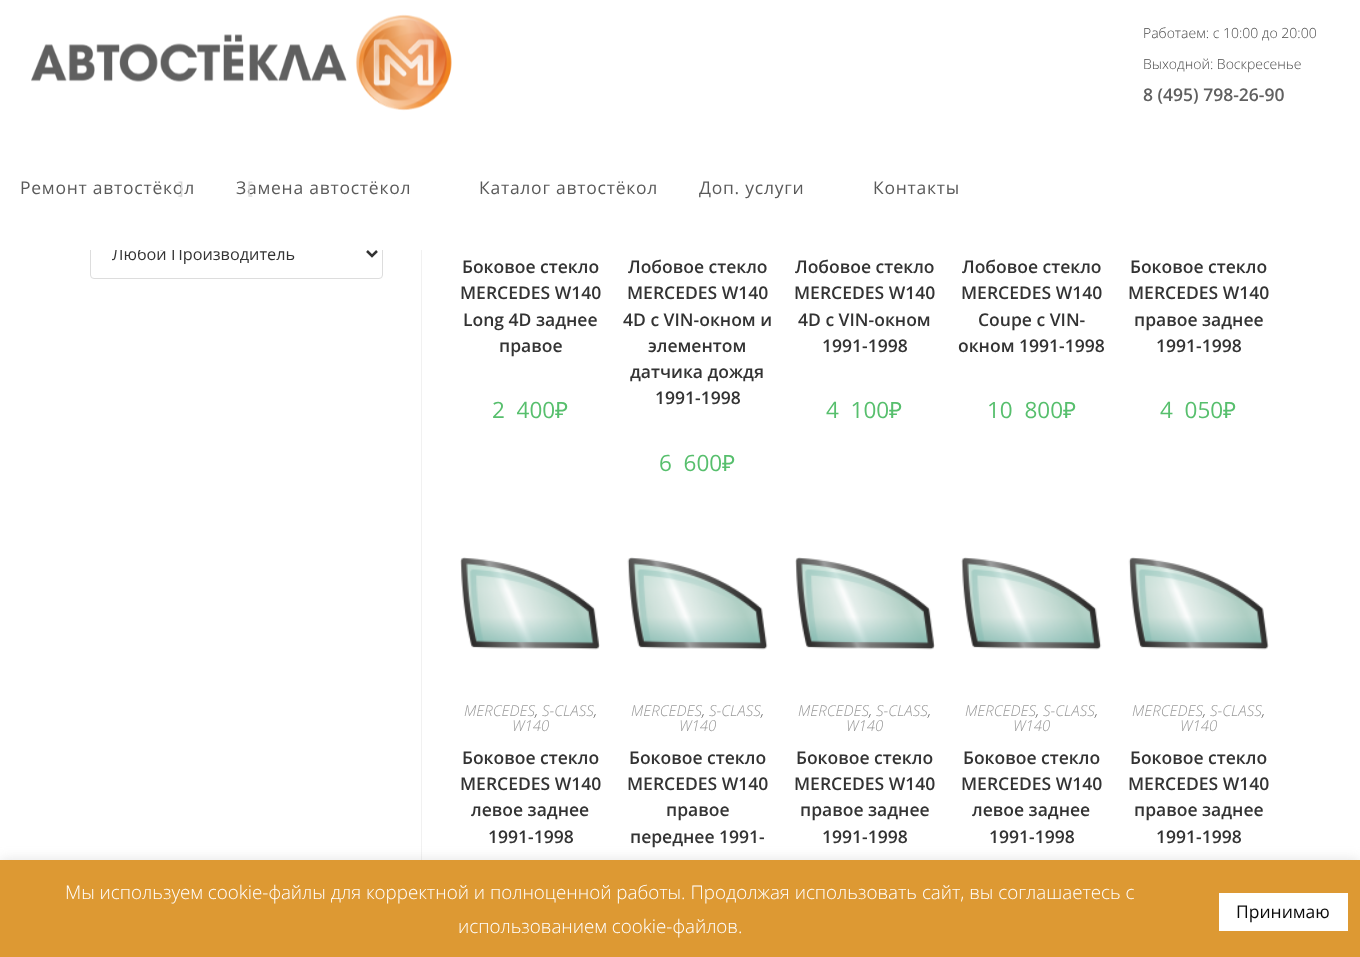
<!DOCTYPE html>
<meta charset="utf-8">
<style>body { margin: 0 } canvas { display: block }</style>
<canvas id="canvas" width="1360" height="957"></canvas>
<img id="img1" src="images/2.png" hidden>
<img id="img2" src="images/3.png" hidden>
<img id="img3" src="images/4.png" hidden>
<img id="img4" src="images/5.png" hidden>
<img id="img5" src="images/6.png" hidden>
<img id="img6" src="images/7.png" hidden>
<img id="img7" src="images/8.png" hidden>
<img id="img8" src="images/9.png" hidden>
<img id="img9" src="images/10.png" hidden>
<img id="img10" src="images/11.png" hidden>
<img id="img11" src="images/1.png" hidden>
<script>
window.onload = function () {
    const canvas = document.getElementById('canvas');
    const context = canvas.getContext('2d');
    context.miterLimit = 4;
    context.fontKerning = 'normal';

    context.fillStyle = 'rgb(255, 255, 255)';
    context.fillRect(0, 0, 1360, 957);
    context.strokeStyle = 'rgb(221, 221, 221)';
    context.strokeRect(90.5, 28.5, 254, 35);
    context.beginPath();
    context.moveTo(329, 43);
    context.lineTo(334, 48);
    context.lineTo(339, 43);
    context.strokeStyle = 'rgb(74, 74, 74)';
    context.lineWidth = 2.5;
    context.stroke();
    context.fillStyle = 'rgb(239, 239, 239)';
    context.beginPath();
    context.roundRect(345.5, 28.5, 37, 35, 2);
    context.fill();
    context.strokeStyle = 'rgb(118, 118, 118)';
    context.lineWidth = 1;
    context.stroke();
    context.drawImage(document.getElementById('img1'), 361, 40, 7, 12);
    context.fillStyle = 'rgb(239, 127, 26)';
    context.fillRect(90, 188, 4, 16);
    context.beginPath();
    context.roundRect(90.5, 229.5, 292, 49, 3.5);
    context.strokeStyle = 'rgb(221, 221, 221)';
    context.stroke();
    context.beginPath();
    context.moveTo(367, 251);
    context.lineTo(372, 256);
    context.lineTo(377, 251);
    context.strokeStyle = 'rgb(51, 51, 51)';
    context.lineWidth = 2.5;
    context.stroke();
    context.fillStyle = 'rgb(241, 241, 241)';
    context.fillRect(421, 0, 1, 860);
    context.fillStyle = 'rgb(234, 234, 234)';
    context.fillRect(460, 13, 810, 1);
    context.drawImage(document.getElementById('img2'), 460, 67, 140, 93);
    context.drawImage(document.getElementById('img3'), 626, 75, 142, 74);
    context.drawImage(document.getElementById('img4'), 793, 75, 142, 74);
    context.drawImage(document.getElementById('img5'), 959, 75, 143, 74);
    context.drawImage(document.getElementById('img6'), 1128, 67, 141, 93);
    context.drawImage(document.getElementById('img7'), 460, 557, 140, 93);
    context.drawImage(document.getElementById('img8'), 627, 557, 141, 93);
    context.drawImage(document.getElementById('img9'), 795, 557, 140, 93);
    context.drawImage(document.getElementById('img10'), 961, 557, 141, 93);
    context.drawImage(document.getElementById('img6'), 1128, 557, 141, 93);
    context.fillStyle = 'rgba(172, 171, 171, 0.3)';
    context.filter = 'blur(6px)';
    context.beginPath();
    context.rect(0, 859, 1360, 97);
    context.fill();
    context.filter = 'none';
    context.fillStyle = 'rgb(221, 153, 51)';
    context.fillRect(0, 860, 1360, 97);
    context.fillStyle = 'rgb(255, 255, 255)';
    context.fillRect(1219, 893, 129, 38);
    context.font = '16.25px Open Sans';
    context.fillStyle = 'rgb(51, 51, 51)';
    context.fillText('Любой Производитель', 112, 260);
    context.fillStyle = 'rgba(255, 255, 255, 0.97)';
    context.fillRect(90, 0, 1180, 250);
    context.fillRect(90, 28, 1178, 222);
    context.letterSpacing = '0.75px';
    context.font = '17.5px Open Sans';
    context.fillStyle = 'rgb(90, 90, 90)';
    context.fillText('Контакты', 873, 194);
    context.fillText('Доп. услуги', 699, 194);
    context.fillText('Каталог автостёкол', 479, 194);
    context.fillText('Замена автостёкол', 236, 194);
    context.fillStyle = 'rgb(219, 219, 219)';
    context.fillText('[', 247, 194);
    context.fillStyle = 'rgb(90, 90, 90)';
    context.fillText('Ремонт автостёкол', 20, 194);
    context.fillStyle = 'rgb(213, 213, 213)';
    context.fillText(']', 178, 194);
    context.letterSpacing = '0px';
    context.font = '600 17.5px Open Sans';
    context.fillStyle = 'rgb(96, 96, 96)';
    context.fillText('8 (495) 798-26-90', 1143, 101);
    context.font = '300 14px Open Sans';
    context.fillStyle = 'rgb(74, 74, 74)';
    context.fillText('Выходной: Воскресенье', 1143, 69);
    context.fillText('Работаем: с 10:00 до 20:00', 1143, 38);
    context.drawImage(document.getElementById('img11'), 31, 14, 421, 97);
    context.font = '600 17.5px Open Sans';
    context.fillStyle = 'rgb(51, 51, 51)';
    context.fillText('Боковое стекло', 462, 273);
    context.fillText('MERCEDES W140', 460, 299);
    context.fillText('Long 4D заднее', 463, 326);
    context.fillText('правое', 499, 352);
    context.font = '22.5px Open Sans';
    context.fillStyle = 'rgb(87, 191, 109)';
    context.fillText('2  400', 492, 418);
    context.font = '22.5px Noto Sans';
    context.fillText('₽', 555, 418);
    context.font = '600 17.5px Open Sans';
    context.fillStyle = 'rgb(51, 51, 51)';
    context.fillText('Лобовое стекло', 628, 273);
    context.fillText('MERCEDES W140', 627, 299);
    context.fillText('4D с VIN-окном и', 623, 326);
    context.fillText('элементом', 648, 352);
    context.fillText('датчика дождя', 630, 378);
    context.fillText('1991-1998', 655, 404);
    context.font = '22.5px Open Sans';
    context.fillStyle = 'rgb(87, 191, 109)';
    context.fillText('6  600', 659, 471);
    context.font = '22.5px Noto Sans';
    context.fillText('₽', 722, 471);
    context.font = '600 17.5px Open Sans';
    context.fillStyle = 'rgb(51, 51, 51)';
    context.fillText('Лобовое стекло', 795, 273);
    context.fillText('MERCEDES W140', 794, 299);
    context.fillText('4D с VIN-окном', 798, 326);
    context.fillText('1991-1998', 822, 352);
    context.font = '22.5px Open Sans';
    context.fillStyle = 'rgb(87, 191, 109)';
    context.fillText('4  100', 826, 418);
    context.font = '22.5px Noto Sans';
    context.fillText('₽', 889, 418);
    context.font = '600 17.5px Open Sans';
    context.fillStyle = 'rgb(51, 51, 51)';
    context.fillText('Лобовое стекло', 962, 273);
    context.fillText('MERCEDES W140', 961, 299);
    context.fillText('Coupe с VIN-', 978, 326);
    context.fillText('окном 1991-1998', 958, 352);
    context.font = '22.5px Open Sans';
    context.fillStyle = 'rgb(87, 191, 109)';
    context.fillText('10  800', 987, 418);
    context.font = '22.5px Noto Sans';
    context.fillText('₽', 1063, 418);
    context.font = '600 17.5px Open Sans';
    context.fillStyle = 'rgb(51, 51, 51)';
    context.fillText('Боковое стекло', 1130, 273);
    context.fillText('MERCEDES W140', 1128, 299);
    context.fillText('правое заднее', 1134, 326);
    context.fillText('1991-1998', 1156, 352);
    context.font = '22.5px Open Sans';
    context.fillStyle = 'rgb(87, 191, 109)';
    context.fillText('4  050', 1160, 418);
    context.font = '22.5px Noto Sans';
    context.fillText('₽', 1223, 418);
    context.font = 'italic 300 15px Open Sans';
    context.fillStyle = 'rgb(153, 153, 153)';
    context.fillText('MERCEDES', 464, 716);
    context.fillText('S-CLASS', 542, 716);
    context.fillStyle = 'rgb(74, 74, 74)';
    context.fillText(',', 535, 716);
    context.fillText(',', 594, 716);
    context.fillStyle = 'rgb(153, 153, 153)';
    context.fillText('W140', 512, 731);
    context.font = '600 17.5px Open Sans';
    context.fillStyle = 'rgb(51, 51, 51)';
    context.fillText('Боковое стекло', 462, 764);
    context.fillText('MERCEDES W140', 460, 790);
    context.fillText('левое заднее', 471, 816);
    context.fillText('1991-1998', 488, 843);
    context.font = 'italic 300 15px Open Sans';
    context.fillStyle = 'rgb(153, 153, 153)';
    context.fillText('MERCEDES', 631, 716);
    context.fillText('S-CLASS', 709, 716);
    context.fillStyle = 'rgb(74, 74, 74)';
    context.fillText(',', 702, 716);
    context.fillText(',', 761, 716);
    context.fillStyle = 'rgb(153, 153, 153)';
    context.fillText('W140', 679, 731);
    context.font = '600 17.5px Open Sans';
    context.fillStyle = 'rgb(51, 51, 51)';
    context.fillText('Боковое стекло', 629, 764);
    context.fillText('MERCEDES W140', 627, 790);
    context.fillText('правое', 666, 816);
    context.fillText('переднее 1991-', 630, 843);
    context.font = 'italic 300 15px Open Sans';
    context.fillStyle = 'rgb(153, 153, 153)';
    context.fillText('MERCEDES', 798, 716);
    context.fillText('S-CLASS', 876, 716);
    context.fillStyle = 'rgb(74, 74, 74)';
    context.fillText(',', 869, 716);
    context.fillText(',', 928, 716);
    context.fillStyle = 'rgb(153, 153, 153)';
    context.fillText('W140', 846, 731);
    context.font = '600 17.5px Open Sans';
    context.fillStyle = 'rgb(51, 51, 51)';
    context.fillText('Боковое стекло', 796, 764);
    context.fillText('MERCEDES W140', 794, 790);
    context.fillText('правое заднее', 800, 816);
    context.fillText('1991-1998', 822, 843);
    context.font = 'italic 300 15px Open Sans';
    context.fillStyle = 'rgb(153, 153, 153)';
    context.fillText('MERCEDES', 965, 716);
    context.fillText('S-CLASS', 1043, 716);
    context.fillStyle = 'rgb(74, 74, 74)';
    context.fillText(',', 1036, 716);
    context.fillText(',', 1095, 716);
    context.fillStyle = 'rgb(153, 153, 153)';
    context.fillText('W140', 1013, 731);
    context.font = '600 17.5px Open Sans';
    context.fillStyle = 'rgb(51, 51, 51)';
    context.fillText('Боковое стекло', 963, 764);
    context.fillText('MERCEDES W140', 961, 790);
    context.fillText('левое заднее', 972, 816);
    context.fillText('1991-1998', 989, 843);
    context.font = 'italic 300 15px Open Sans';
    context.fillStyle = 'rgb(153, 153, 153)';
    context.fillText('MERCEDES', 1132, 716);
    context.fillText('S-CLASS', 1210, 716);
    context.fillStyle = 'rgb(74, 74, 74)';
    context.fillText(',', 1203, 716);
    context.fillText(',', 1262, 716);
    context.fillStyle = 'rgb(153, 153, 153)';
    context.fillText('W140', 1180, 731);
    context.font = '600 17.5px Open Sans';
    context.fillStyle = 'rgb(51, 51, 51)';
    context.fillText('Боковое стекло', 1130, 764);
    context.fillText('MERCEDES W140', 1128, 790);
    context.fillText('правое заднее', 1134, 816);
    context.fillText('1991-1998', 1156, 843);
    context.font = '300 18.75px Open Sans';
    context.fillStyle = 'rgb(255, 255, 255)';
    context.fillText('Мы используем cookie-файлы для корректной и полноценной работы. Продолжая использовать сайт, вы соглашаетесь с', 65, 899);
    context.fillText('использованием cookie-файлов.', 458, 933);
    context.font = '17.5px Open Sans';
    context.fillStyle = 'rgb(10, 10, 10)';
    context.fillText('Принимаю', 1236, 918);
};
</script>
